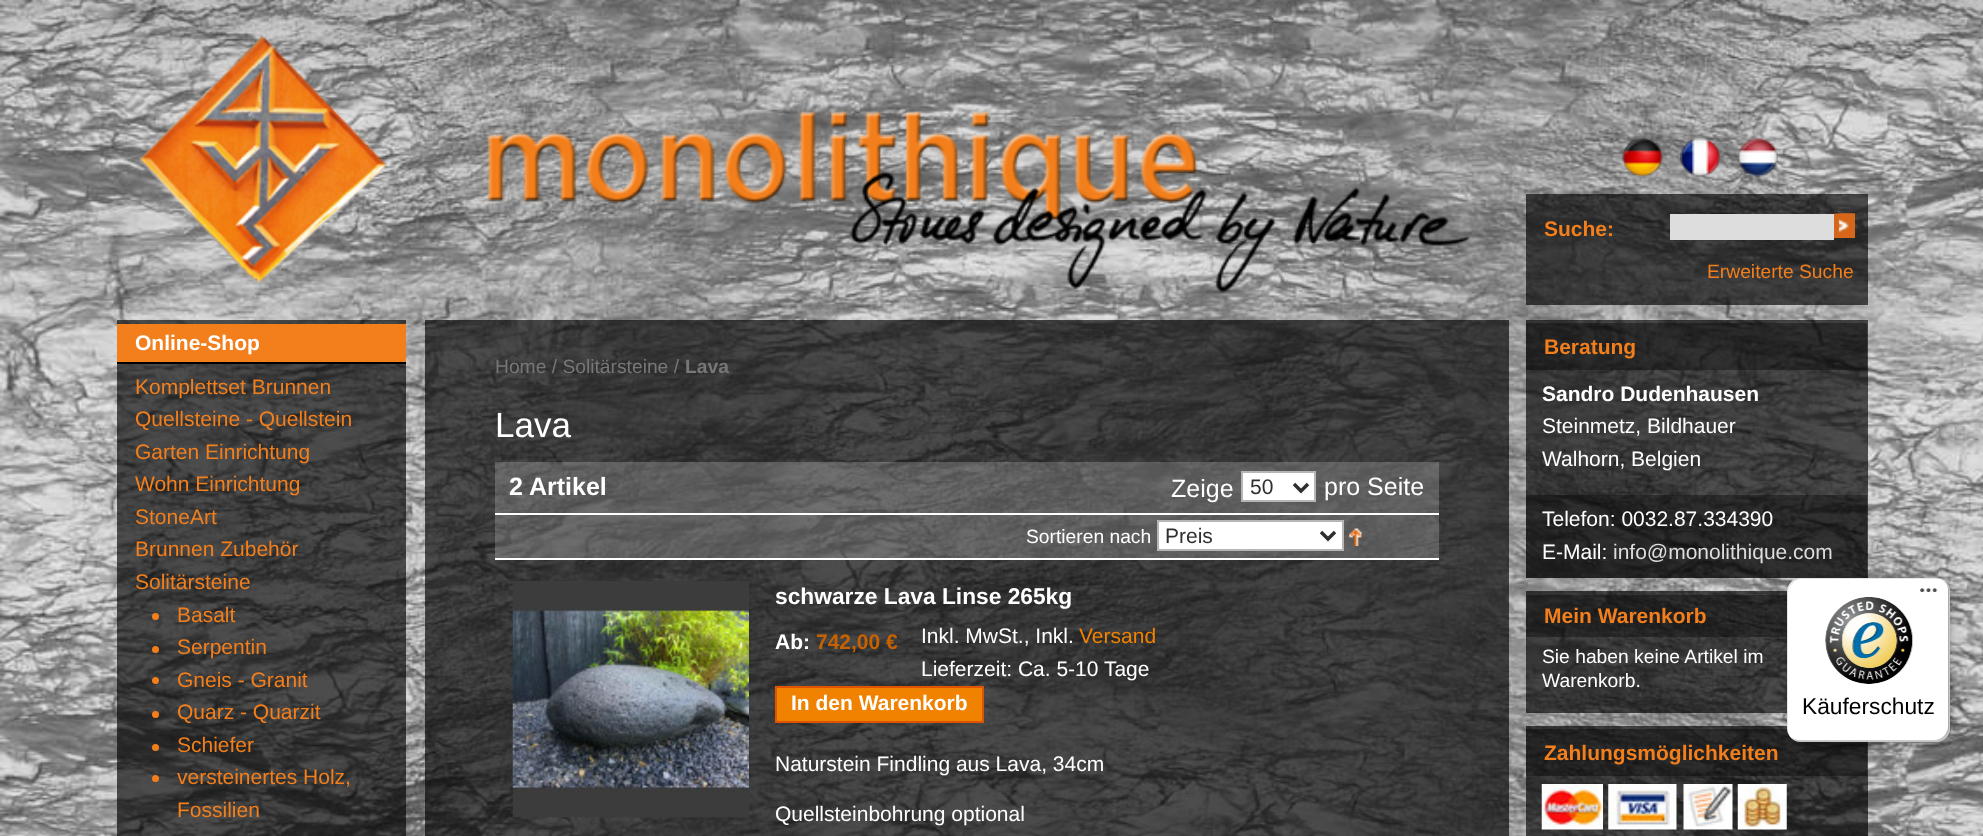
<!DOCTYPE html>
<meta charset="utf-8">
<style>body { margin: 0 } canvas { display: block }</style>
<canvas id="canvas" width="1983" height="836"></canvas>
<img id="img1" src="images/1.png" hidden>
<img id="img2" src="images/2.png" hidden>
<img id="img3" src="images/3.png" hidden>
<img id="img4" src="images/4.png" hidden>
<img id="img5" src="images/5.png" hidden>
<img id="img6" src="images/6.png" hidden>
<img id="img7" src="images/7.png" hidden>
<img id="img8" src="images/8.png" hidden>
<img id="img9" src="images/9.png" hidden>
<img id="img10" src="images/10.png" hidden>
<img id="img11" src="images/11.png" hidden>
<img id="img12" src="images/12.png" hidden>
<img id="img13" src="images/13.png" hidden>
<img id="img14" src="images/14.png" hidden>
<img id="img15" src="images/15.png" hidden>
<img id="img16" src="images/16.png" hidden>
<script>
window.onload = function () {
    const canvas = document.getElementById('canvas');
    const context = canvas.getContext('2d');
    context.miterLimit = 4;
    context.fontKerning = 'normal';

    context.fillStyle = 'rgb(255, 255, 255)';
    context.fillRect(0, 0, 1983, 836);
    context.drawImage(document.getElementById('img1'), 0, 0, 1983, 836);
    context.drawImage(document.getElementById('img2'), 138, 35, 249, 249);
    context.drawImage(document.getElementById('img3'), 487, 111, 983, 182);
    context.drawImage(document.getElementById('img4'), 1622, 137, 41, 41);
    context.drawImage(document.getElementById('img5'), 1680, 138, 41, 40);
    context.drawImage(document.getElementById('img6'), 1738, 137, 40, 41);
    context.fillStyle = 'rgba(0, 0, 0, 0.65)';
    context.fillRect(1526, 194, 342, 111);
    context.fillStyle = 'rgb(221, 221, 221)';
    context.fillRect(1670, 214, 164, 26);
    context.drawImage(document.getElementById('img7'), 1834, 213, 21, 25);
    context.drawImage(document.getElementById('img8'), 1839, 213, 16, 21);
    context.fillStyle = 'rgba(0, 0, 0, 0.65)';
    context.fillRect(117, 320, 289, 516);
    context.fillStyle = 'rgb(243, 127, 28)';
    context.fillRect(117, 324, 289, 38);
    context.fillStyle = 'rgb(0, 0, 0)';
    context.fillRect(117, 362, 289, 2);
    context.fillStyle = 'rgb(243, 127, 28)';
    context.beginPath();
    context.arc(155.5, 616.5, 3.5, 0, 2 * Math.PI);
    context.fill();
    context.beginPath();
    context.arc(155.5, 649.5, 3.5, 0, 2 * Math.PI);
    context.fill();
    context.beginPath();
    context.arc(155.5, 680.5, 3.5, 0, 2 * Math.PI);
    context.fill();
    context.beginPath();
    context.arc(155.5, 714.5, 3.5, 0, 2 * Math.PI);
    context.fill();
    context.beginPath();
    context.arc(155.5, 747.5, 3.5, 0, 2 * Math.PI);
    context.fill();
    context.beginPath();
    context.arc(155.5, 778.5, 3.5, 0, 2 * Math.PI);
    context.fill();
    context.fillStyle = 'rgba(0, 0, 0, 0.65)';
    context.fillRect(425, 320, 1084, 516);
    context.fillStyle = 'rgba(255, 255, 255, 0.2)';
    context.fillRect(495, 462, 944, 51);
    context.fillStyle = 'rgb(255, 255, 255)';
    context.fillRect(495, 513, 944, 2);
    context.beginPath();
    context.rect(1242, 472, 73, 29);
    context.fill();
    context.strokeStyle = 'rgb(182, 182, 182)';
    context.lineWidth = 2;
    context.stroke();
    context.beginPath();
    context.moveTo(1294, 484);
    context.lineTo(1301, 491);
    context.lineTo(1308, 484);
    context.strokeStyle = 'rgb(47, 47, 47)';
    context.lineWidth = 3.5;
    context.stroke();
    context.fillStyle = 'rgba(255, 255, 255, 0.2)';
    context.fillRect(495, 515, 944, 43);
    context.fillStyle = 'rgb(255, 255, 255)';
    context.fillRect(495, 558, 944, 2);
    context.beginPath();
    context.rect(1158, 521, 185, 29);
    context.fill();
    context.strokeStyle = 'rgb(182, 182, 182)';
    context.lineWidth = 2;
    context.stroke();
    context.beginPath();
    context.moveTo(1321, 532);
    context.lineTo(1328, 539);
    context.lineTo(1335, 532);
    context.strokeStyle = 'rgb(47, 47, 47)';
    context.lineWidth = 3.5;
    context.stroke();
    context.drawImage(document.getElementById('img9'), 1349, 528, 13, 18);
    context.drawImage(document.getElementById('img10'), 512, 581, 237, 237);
    context.fillStyle = 'rgb(241, 130, 0)';
    context.beginPath();
    context.rect(776, 687, 207, 35);
    context.fill();
    context.strokeStyle = 'rgb(222, 84, 0)';
    context.lineWidth = 2;
    context.stroke();
    context.fillStyle = 'rgba(0, 0, 0, 0.65)';
    context.fillRect(1526, 320, 342, 258);
    context.fillStyle = 'rgba(0, 0, 0, 0.35)';
    context.fillRect(1526, 323, 341, 47);
    context.fillRect(1526, 495, 341, 83);
    context.fillStyle = 'rgba(0, 0, 0, 0.65)';
    context.fillRect(1526, 591, 262, 122);
    context.fillStyle = 'rgba(0, 0, 0, 0.35)';
    context.fillRect(1526, 595, 261, 42);
    context.fillStyle = 'rgba(0, 0, 0, 0.65)';
    context.fillRect(1526, 726, 342, 110);
    context.fillStyle = 'rgba(0, 0, 0, 0.35)';
    context.fillRect(1526, 729, 341, 47);
    context.drawImage(document.getElementById('img11'), 1541, 784, 62, 46);
    context.drawImage(document.getElementById('img12'), 1608, 784, 69, 46);
    context.drawImage(document.getElementById('img13'), 1683, 784, 50, 46);
    context.drawImage(document.getElementById('img14'), 1737, 784, 50, 46);
    context.fillStyle = 'rgba(0, 0, 0, 0.15)';
    context.filter = 'blur(7px)';
    context.beginPath();
    context.roundRect(1792, 583, 163, 164, 14);
    context.fill();
    context.filter = 'none';
    context.filter = 'blur(2px)';
    context.beginPath();
    context.roundRect(1789, 579, 162, 165, 14);
    context.fill();
    context.filter = 'none';
    context.fillStyle = 'rgb(255, 255, 255)';
    context.beginPath();
    context.roundRect(1787, 578, 163, 164, 14);
    context.fill();
    context.fillStyle = 'rgba(0, 0, 0, 0.1)';
    context.beginPath();
    context.moveTo(1802, 579);
    context.lineTo(1937, 579);
    context.bezierCurveTo(1941, 579, 1945, 581, 1947, 584);
    context.bezierCurveTo(1945, 580, 1941, 578, 1936, 578);
    context.lineTo(1801, 578);
    context.bezierCurveTo(1793, 578, 1787, 584, 1787, 592);
    context.lineTo(1787, 728);
    context.bezierCurveTo(1787, 731, 1788, 734, 1790, 737);
    context.bezierCurveTo(1789, 735, 1788, 732, 1788, 730);
    context.lineTo(1788, 593);
    context.bezierCurveTo(1788, 586, 1795, 579, 1802, 579);
    context.closePath();
    context.fill();
    context.fillStyle = 'rgba(0, 0, 0, 0.2)';
    context.beginPath();
    context.moveTo(1791, 737);
    context.bezierCurveTo(1793, 740, 1797, 742, 1801, 742);
    context.lineTo(1936, 742);
    context.bezierCurveTo(1944, 742, 1950, 736, 1950, 728);
    context.lineTo(1950, 592);
    context.bezierCurveTo(1950, 587, 1948, 583, 1944, 581);
    context.bezierCurveTo(1947, 583, 1948, 586, 1948, 590);
    context.lineTo(1948, 726);
    context.bezierCurveTo(1948, 734, 1941, 740, 1934, 740);
    context.lineTo(1799, 740);
    context.bezierCurveTo(1796, 740, 1793, 739, 1791, 737);
    context.closePath();
    context.fill();
    context.fillStyle = 'rgba(50, 50, 50, 0.2)';
    context.beginPath();
    context.moveTo(1792, 738);
    context.bezierCurveTo(1794, 741, 1797, 742, 1801, 742);
    context.lineTo(1936, 742);
    context.bezierCurveTo(1944, 742, 1950, 736, 1950, 728);
    context.lineTo(1950, 592);
    context.bezierCurveTo(1950, 587, 1948, 583, 1944, 581);
    context.bezierCurveTo(1947, 583, 1948, 587, 1948, 590);
    context.lineTo(1948, 727);
    context.bezierCurveTo(1948, 735, 1942, 741, 1934, 741);
    context.lineTo(1800, 741);
    context.bezierCurveTo(1797, 741, 1794, 740, 1792, 738);
    context.closePath();
    context.fill();
    context.fillStyle = 'rgba(255, 255, 255, 0.3)';
    context.beginPath();
    context.moveTo(1792, 738);
    context.bezierCurveTo(1794, 741, 1797, 742, 1801, 742);
    context.lineTo(1936, 742);
    context.bezierCurveTo(1944, 742, 1950, 736, 1950, 728);
    context.lineTo(1950, 592);
    context.bezierCurveTo(1950, 587, 1948, 583, 1944, 581);
    context.bezierCurveTo(1947, 583, 1949, 587, 1949, 591);
    context.lineTo(1949, 727);
    context.bezierCurveTo(1949, 735, 1942, 741, 1935, 741);
    context.lineTo(1800, 741);
    context.bezierCurveTo(1797, 741, 1794, 740, 1792, 738);
    context.closePath();
    context.fill();
    context.drawImage(document.getElementById('img15'), 1920, 588, 18, 4);
    context.drawImage(document.getElementById('img16'), 1825, 597, 88, 87);
    context.font = 'bold 21px Liberation Sans';
    context.fillStyle = 'rgb(243, 127, 28)';
    context.fillText('Suche:', 1544, 236);
    context.font = '19.25px Liberation Sans';
    context.fillText('Erweiterte Suche', 1707, 278);
    context.font = 'bold 21px Liberation Sans';
    context.fillStyle = 'rgb(255, 255, 255)';
    context.fillText('Online-Shop', 135, 350);
    context.font = '21px Liberation Sans';
    context.fillStyle = 'rgb(243, 127, 28)';
    context.fillText('Komplettset Brunnen', 135, 394);
    context.fillText('Quellsteine - Quellstein', 135, 426);
    context.fillText('Garten Einrichtung', 135, 459);
    context.fillText('Wohn Einrichtung', 135, 491);
    context.fillText('StoneArt', 135, 524);
    context.fillText('Brunnen Zubehör', 135, 556);
    context.fillText('Solitärsteine', 135, 589);
    context.fillText('Basalt', 177, 622);
    context.fillText('Serpentin', 177, 654);
    context.fillText('Gneis - Granit', 177, 687);
    context.fillText('Quarz - Quarzit', 177, 719);
    context.fillText('Schiefer', 177, 752);
    context.fillText('versteinertes Holz,', 177, 784);
    context.fillText('Fossilien', 177, 817);
    context.font = '19.25px Liberation Sans';
    context.fillStyle = 'rgb(119, 119, 119)';
    context.fillText('Home / Solitärsteine /', 495, 373);
    context.font = 'bold 19.25px Liberation Sans';
    context.fillText('Lava', 685, 373);
    context.font = '35px Liberation Sans';
    context.fillStyle = 'rgb(255, 255, 255)';
    context.fillText('Lava', 495, 437);
    context.font = 'bold 25px Liberation Sans';
    context.fillText('2 Artikel', 509, 495);
    context.font = '25px Liberation Sans';
    context.fillText('Zeige', 1171, 497);
    context.font = '21px Liberation Sans';
    context.fillStyle = 'rgb(47, 47, 47)';
    context.fillText('50', 1250, 494);
    context.font = '25px Liberation Sans';
    context.fillStyle = 'rgb(255, 255, 255)';
    context.fillText('pro Seite', 1324, 495);
    context.font = '19.25px Liberation Sans';
    context.fillText('Sortieren nach', 1026, 543);
    context.font = '21px Liberation Sans';
    context.fillStyle = 'rgb(47, 47, 47)';
    context.fillText('Preis', 1165, 543);
    context.font = 'bold 22.75px Liberation Sans';
    context.fillStyle = 'rgb(255, 255, 255)';
    context.fillText('schwarze Lava Linse 265kg', 775, 604);
    context.font = 'bold 21px Liberation Sans';
    context.fillText('Ab:', 775, 649);
    context.fillStyle = 'rgb(199, 98, 0)';
    context.fillText('742,00 €', 816, 649);
    context.font = '21px Liberation Sans';
    context.fillStyle = 'rgb(255, 255, 255)';
    context.fillText('Inkl. MwSt., Inkl.', 921, 643);
    context.fillStyle = 'rgb(241, 130, 0)';
    context.fillText('Versand', 1079, 643);
    context.fillStyle = 'rgb(255, 255, 255)';
    context.fillText('Lieferzeit: Ca. 5-10 Tage', 921, 676);
    context.font = 'bold 21px Liberation Sans';
    context.fillText('In den Warenkorb', 791, 710);
    context.font = '21px Liberation Sans';
    context.fillText('Naturstein Findling aus Lava, 34cm', 775, 771);
    context.fillText('Quellsteinbohrung optional', 775, 821);
    context.font = 'bold 21px Liberation Sans';
    context.fillStyle = 'rgb(243, 127, 28)';
    context.fillText('Beratung', 1544, 354);
    context.fillStyle = 'rgb(255, 255, 255)';
    context.fillText('Sandro Dudenhausen', 1542, 401);
    context.font = '21px Liberation Sans';
    context.fillText('Steinmetz, Bildhauer', 1542, 433);
    context.fillText('Walhorn, Belgien', 1542, 466);
    context.fillText('Telefon: 0032.87.334390', 1542, 526);
    context.fillText('E-Mail:', 1542, 559);
    context.fillStyle = 'rgb(221, 221, 221)';
    context.fillText('info@monolithique.com', 1613, 559);
    context.font = 'bold 21px Liberation Sans';
    context.fillStyle = 'rgb(243, 127, 28)';
    context.fillText('Mein Warenkorb', 1544, 623);
    context.font = '19.25px Liberation Sans';
    context.fillStyle = 'rgb(255, 255, 255)';
    context.fillText('Sie haben keine Artikel im', 1542, 663);
    context.fillText('Warenkorb.', 1542, 687);
    context.font = 'bold 21px Liberation Sans';
    context.fillStyle = 'rgb(243, 127, 28)';
    context.fillText('Zahlungsmöglichkeiten', 1544, 760);
    context.font = '22.75px Liberation Sans';
    context.fillStyle = 'rgb(0, 0, 0)';
    context.fillText('Käuferschutz', 1802, 714);
};
</script>
